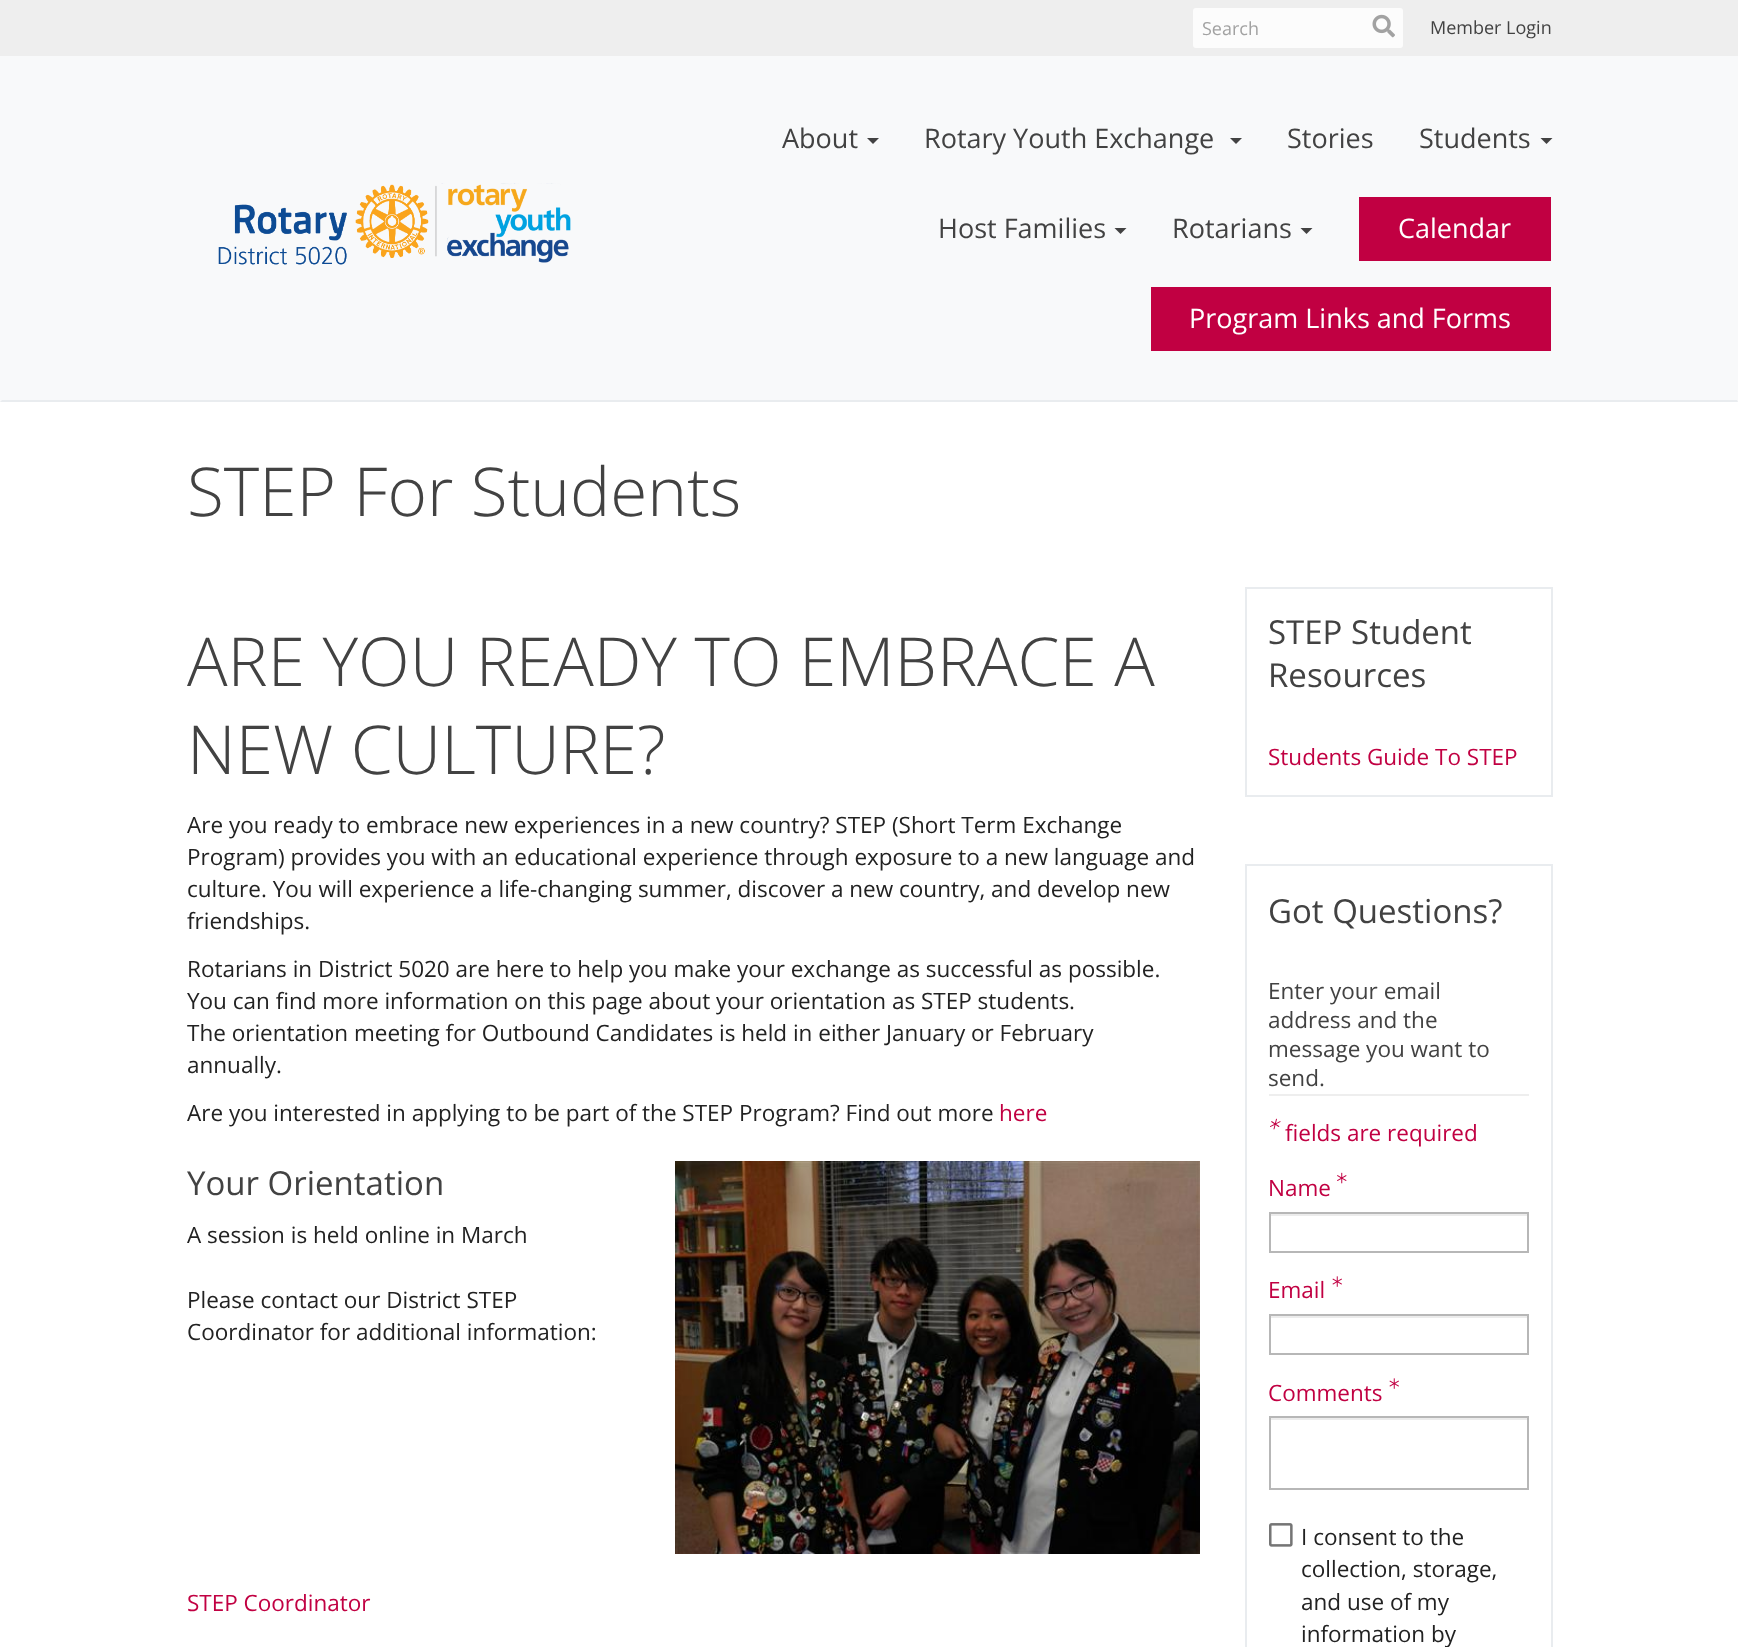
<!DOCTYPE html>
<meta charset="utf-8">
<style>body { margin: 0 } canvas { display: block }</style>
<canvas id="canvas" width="1738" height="1647"></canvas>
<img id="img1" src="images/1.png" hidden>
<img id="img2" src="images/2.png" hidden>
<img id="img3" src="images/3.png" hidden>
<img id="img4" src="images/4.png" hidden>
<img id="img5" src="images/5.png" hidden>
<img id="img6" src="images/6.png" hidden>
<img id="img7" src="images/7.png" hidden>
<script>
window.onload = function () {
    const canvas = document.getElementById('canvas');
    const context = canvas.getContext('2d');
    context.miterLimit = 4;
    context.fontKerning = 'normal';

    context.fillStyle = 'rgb(255, 255, 255)';
    context.fillRect(0, 0, 1738, 1647);
    context.fillStyle = 'rgb(238, 238, 238)';
    context.fillRect(0, 0, 1738, 56);
    context.fillStyle = 'rgb(252, 252, 252)';
    context.beginPath();
    context.roundRect(1193, 8, 210, 40, 3);
    context.fill();
    context.drawImage(document.getElementById('img1'), 1372, 14, 23, 24);
    context.fillStyle = 'rgb(248, 249, 250)';
    context.fillRect(0, 56, 1738, 346);
    context.fillStyle = 'rgb(233, 236, 239)';
    context.beginPath();
    context.moveTo(1738, 402);
    context.lineTo(0, 402);
    context.lineTo(2, 400);
    context.lineTo(1737, 400);
    context.closePath();
    context.fill();
    context.drawImage(document.getElementById('img2'), 218, 183, 353, 82);
    context.fillStyle = 'rgb(66, 66, 66)';
    context.beginPath();
    context.moveTo(867, 138);
    context.lineTo(879, 138);
    context.lineTo(873, 144);
    context.closePath();
    context.fill();
    context.beginPath();
    context.moveTo(1230, 138);
    context.lineTo(1242, 138);
    context.lineTo(1236, 144);
    context.closePath();
    context.fill();
    context.beginPath();
    context.moveTo(1540.5, 138);
    context.lineTo(1552.5, 138);
    context.lineTo(1546.5, 144);
    context.closePath();
    context.fill();
    context.beginPath();
    context.moveTo(1114.5, 228);
    context.lineTo(1126.5, 228);
    context.lineTo(1120.5, 234);
    context.closePath();
    context.fill();
    context.beginPath();
    context.moveTo(1300.5, 228);
    context.lineTo(1312.5, 228);
    context.lineTo(1306.5, 234);
    context.closePath();
    context.fill();
    context.fillStyle = 'rgb(193, 0, 66)';
    context.fillRect(1359, 197, 192, 64);
    context.fillRect(1151, 287, 400, 64);
    context.drawImage(document.getElementById('img3'), 675, 1161, 525, 393);
    context.fillStyle = 'rgb(233, 236, 239)';
    context.fillRect(1245, 587, 308, 2);
    context.fillRect(1551, 587, 2, 210);
    context.fillRect(1245, 587, 2, 132);
    context.fillRect(1245, 795, 308, 2);
    context.fillRect(1245, 719, 2, 78);
    context.fillRect(1245, 864, 308, 2);
    context.fillRect(1551, 864, 2, 783);
    context.fillRect(1245, 864, 2, 783);
    context.fillStyle = 'rgb(238, 238, 238)';
    context.fillRect(1269, 1094, 260, 2);
    context.drawImage(document.getElementById('img4'), 1270, 1118, 11, 12);
    context.drawImage(document.getElementById('img5'), 1337, 1172, 10, 12);
    context.fillStyle = 'rgb(236, 236, 236)';
    context.fillRect(1271, 1214, 256, 2);
    context.strokeStyle = 'rgb(183, 183, 183)';
    context.lineWidth = 2;
    context.strokeRect(1270, 1213, 258, 39);
    context.drawImage(document.getElementById('img6'), 1332, 1276, 10, 11);
    context.fillRect(1271, 1316, 256, 2);
    context.strokeRect(1270, 1315, 258, 39);
    context.drawImage(document.getElementById('img6'), 1389, 1378, 10, 11);
    context.fillRect(1271, 1418, 256, 2);
    context.strokeRect(1270, 1417, 258, 72);
    context.drawImage(document.getElementById('img7'), 1269, 1523, 24, 24);
    context.font = '18px Open Sans';
    context.fillStyle = 'rgb(162, 162, 162)';
    context.fillText('Search', 1202, 35);
    context.fillStyle = 'rgb(66, 66, 66)';
    context.fillText('Member Login', 1430, 34);
    context.font = '27px Open Sans';
    context.fillText('About', 782, 148);
    context.fillText('Rotary Youth Exchange', 924, 148);
    context.fillText('Stories', 1287, 148);
    context.fillText('Students', 1419, 148);
    context.fillText('Host Families', 938, 238);
    context.fillText('Rotarians', 1172, 238);
    context.fillStyle = 'rgb(255, 255, 255)';
    context.fillText('Calendar', 1398, 238);
    context.fillText('Program Links and Forms', 1189, 328);
    context.font = '300 67.5px Open Sans';
    context.fillStyle = 'rgb(66, 66, 66)';
    context.fillText('STEP For Students', 187, 516);
    context.fillText('ARE YOU READY TO EMBRACE A', 187, 686);
    context.fillText('NEW CULTURE?', 187, 774);
    context.font = '22.5px Open Sans';
    context.fillStyle = 'rgb(34, 34, 34)';
    context.fillText('Are you ready to embrace new experiences in a new country? STEP (Short Term Exchange', 187, 833);
    context.fillText('Program) provides you with an educational experience through exposure to a new language and', 187, 865);
    context.fillText('culture. You will experience a life-changing summer, discover a new country, and develop new', 187, 897);
    context.fillText('friendships.', 187, 929);
    context.fillText('Rotarians in District 5020 are here to help you make your exchange as successful as possible.', 187, 977);
    context.fillText('You can find more information on this page about your orientation as STEP students.', 187, 1009);
    context.fillText('The orientation meeting for Outbound Candidates is held in either January or February', 187, 1041);
    context.fillText('annually.', 187, 1073);
    context.fillText('Are you interested in applying to be part of the STEP Program? Find out more', 187, 1121);
    context.fillStyle = 'rgb(193, 0, 66)';
    context.fillText('here', 999, 1121);
    context.font = '33px Open Sans';
    context.fillStyle = 'rgb(66, 66, 66)';
    context.fillText('Your Orientation', 187, 1195);
    context.font = '22.5px Open Sans';
    context.fillStyle = 'rgb(34, 34, 34)';
    context.fillText('A session is held online in March', 187, 1243);
    context.fillText('Please contact our District STEP', 187, 1308);
    context.fillText('Coordinator for additional information:', 187, 1340);
    context.fillStyle = 'rgb(193, 0, 66)';
    context.fillText('STEP Coordinator', 187, 1611);
    context.font = '33px Open Sans';
    context.fillStyle = 'rgb(66, 66, 66)';
    context.fillText('STEP Student', 1268, 644);
    context.fillText('Resources', 1268, 687);
    context.font = '22.5px Open Sans';
    context.fillStyle = 'rgb(193, 0, 66)';
    context.fillText('Students Guide To STEP', 1268, 765);
    context.font = '33px Open Sans';
    context.fillStyle = 'rgb(66, 66, 66)';
    context.fillText('Got Questions?', 1268, 923);
    context.font = '22.5px Open Sans';
    context.fillText('Enter your email', 1268, 999);
    context.fillText('address and the', 1268, 1028);
    context.fillText('message you want to', 1268, 1057);
    context.fillText('send.', 1268, 1086);
    context.fillStyle = 'rgb(193, 0, 66)';
    context.fillText('fields are required', 1285, 1141);
    context.fillText('Name', 1268, 1196);
    context.fillText('Email', 1268, 1298);
    context.fillText('Comments', 1268, 1401);
    context.fillStyle = 'rgb(34, 34, 34)';
    context.fillText('I consent to the', 1301, 1545);
    context.fillText('collection, storage,', 1301, 1577);
    context.fillText('and use of my', 1301, 1610);
    context.fillText('information by', 1301, 1642);
};
</script>
